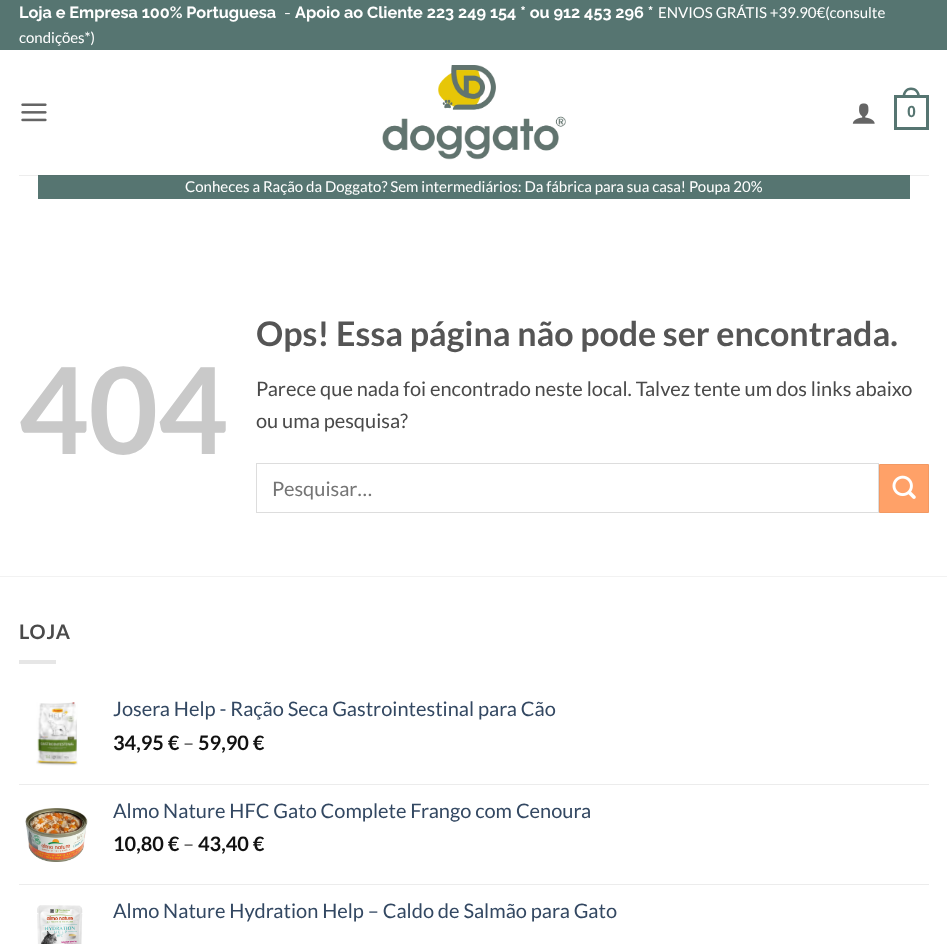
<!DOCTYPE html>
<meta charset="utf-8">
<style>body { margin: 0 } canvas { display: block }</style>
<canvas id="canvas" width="947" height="944"></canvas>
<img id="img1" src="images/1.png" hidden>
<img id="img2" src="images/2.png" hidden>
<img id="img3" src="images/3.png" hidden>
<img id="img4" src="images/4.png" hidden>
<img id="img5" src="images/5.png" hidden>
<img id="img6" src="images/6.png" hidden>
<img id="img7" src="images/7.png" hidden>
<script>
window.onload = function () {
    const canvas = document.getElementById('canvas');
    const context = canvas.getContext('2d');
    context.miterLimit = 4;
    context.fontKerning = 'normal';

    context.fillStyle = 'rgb(255, 255, 255)';
    context.fillRect(0, 0, 947, 944);
    context.fillStyle = 'rgb(237, 237, 237)';
    context.fillRect(19, 175, 910, 1);
    context.fillStyle = 'rgb(86, 117, 113)';
    context.fillRect(0, 0, 947, 50);
    context.drawImage(document.getElementById('img1'), 21, 103, 26, 19);
    context.drawImage(document.getElementById('img2'), 382, 65, 184, 95);
    context.drawImage(document.getElementById('img3'), 852, 103, 23, 21);
    context.strokeStyle = 'rgb(86, 117, 113)';
    context.lineWidth = 3;
    context.strokeRect(895.5, 96.5, 32, 32);
    context.beginPath();
    context.moveTo(911, 87.5);
    context.bezierCurveTo(917, 87.5, 920, 92, 920, 97.5);
    context.lineTo(902.5, 97.5);
    context.bezierCurveTo(902.5, 92, 905.5, 87.5, 911, 87.5);
    context.closePath();
    context.moveTo(911, 90);
    context.bezierCurveTo(915.5, 90, 917.5, 93.5, 917.5, 97.5);
    context.lineTo(905, 97.5);
    context.bezierCurveTo(905, 93.5, 907, 90, 911, 90);
    context.closePath();
    context.fill('evenodd');
    context.fillRect(38, 176, 872, 23);
    context.fillStyle = 'rgb(85, 113, 109)';
    context.fillRect(38, 175, 872, 1);
    context.strokeStyle = 'rgb(221, 221, 221)';
    context.lineWidth = 1;
    context.strokeRect(256.5, 463.5, 622, 49);
    context.fillStyle = 'rgb(255, 161, 104)';
    context.beginPath();
    context.rect(879.5, 464.5, 49, 48);
    context.fill();
    context.strokeStyle = 'rgb(242, 153, 99)';
    context.stroke();
    context.drawImage(document.getElementById('img4'), 892, 475, 24, 24);
    context.fillStyle = 'rgb(242, 242, 242)';
    context.fillRect(0, 576, 947, 1);
    context.fillStyle = 'rgb(230, 230, 230)';
    context.fillRect(19, 660, 37, 4);
    context.drawImage(document.getElementById('img5'), 36, 702, 42, 64);
    context.fillStyle = 'rgb(236, 236, 236)';
    context.fillRect(19, 784, 910, 1);
    context.drawImage(document.getElementById('img6'), 25, 808, 63, 54);
    context.fillRect(19, 884, 910, 1);
    context.drawImage(document.getElementById('img7'), 37, 905, 46, 39);
    context.font = 'bold 16.25px Raleway';
    context.fillStyle = 'rgb(255, 255, 255)';
    context.fillText('Loja e Empresa 100% Portuguesa', 19, 18);
    context.font = '16.25px Raleway';
    context.fillText('-', 284, 18);
    context.font = 'bold 16.25px Raleway';
    context.fillText('Apoio ao Cliente 223 249 154 * ou 912 453 296 *', 295, 18);
    context.font = '15px Lato';
    context.fillText('ENVIOS GRÁTIS +39.90€(consulte', 658, 18);
    context.fillText('condições*)', 19, 43);
    context.font = 'bold 16px Liberation Sans';
    context.fillStyle = 'rgb(86, 117, 113)';
    context.fillText('0', 907, 117);
    context.font = '15px Lato';
    context.fillStyle = 'rgb(255, 255, 255)';
    context.fillText('Conheces a Ração da Doggato? Sem intermediários: Da fábrica para sua casa! Poupa 20%', 185, 192);
    context.font = 'bold 120px Lato';
    context.fillStyle = 'rgb(201, 201, 201)';
    context.fillText('404', 19, 454);
    context.font = 'bold 34px Lato';
    context.fillStyle = 'rgb(85, 85, 85)';
    context.fillText('Ops! Essa página não pode ser encontrada.', 256, 346);
    context.font = '20px Lato';
    context.fillStyle = 'rgb(74, 74, 74)';
    context.fillText('Parece que nada foi encontrado neste local. Talvez tente um dos links abaixo', 256, 396);
    context.fillText('ou uma pesquisa?', 256, 428);
    context.fillStyle = 'rgb(117, 117, 117)';
    context.fillText('Pesquisar…', 272, 496);
    context.letterSpacing = '1px';
    context.font = 'bold 20px Lato';
    context.fillStyle = 'rgb(74, 74, 74)';
    context.fillText('LOJA', 19, 639);
    context.letterSpacing = '0px';
    context.font = '20px Lato';
    context.fillStyle = 'rgb(51, 72, 98)';
    context.fillText('Josera Help - Ração Seca Gastrointestinal para Cão', 113, 716);
    context.font = 'bold 20px Lato';
    context.fillStyle = 'rgb(17, 17, 17)';
    context.fillText('34,95 €', 113, 750);
    context.font = '20px Lato';
    context.fillStyle = 'rgb(74, 74, 74)';
    context.fillText('–', 183, 750);
    context.font = 'bold 20px Lato';
    context.fillStyle = 'rgb(17, 17, 17)';
    context.fillText('59,90 €', 198, 750);
    context.font = '20px Lato';
    context.fillStyle = 'rgb(51, 72, 98)';
    context.fillText('Almo Nature HFC Gato Complete Frango com Cenoura', 113, 818);
    context.font = 'bold 20px Lato';
    context.fillStyle = 'rgb(17, 17, 17)';
    context.fillText('10,80 €', 113, 851);
    context.font = '20px Lato';
    context.fillStyle = 'rgb(74, 74, 74)';
    context.fillText('–', 183, 851);
    context.font = 'bold 20px Lato';
    context.fillStyle = 'rgb(17, 17, 17)';
    context.fillText('43,40 €', 198, 851);
    context.font = '20px Lato';
    context.fillStyle = 'rgb(51, 72, 98)';
    context.fillText('Almo Nature Hydration Help – Caldo de Salmão para Gato', 113, 918);
};
</script>
